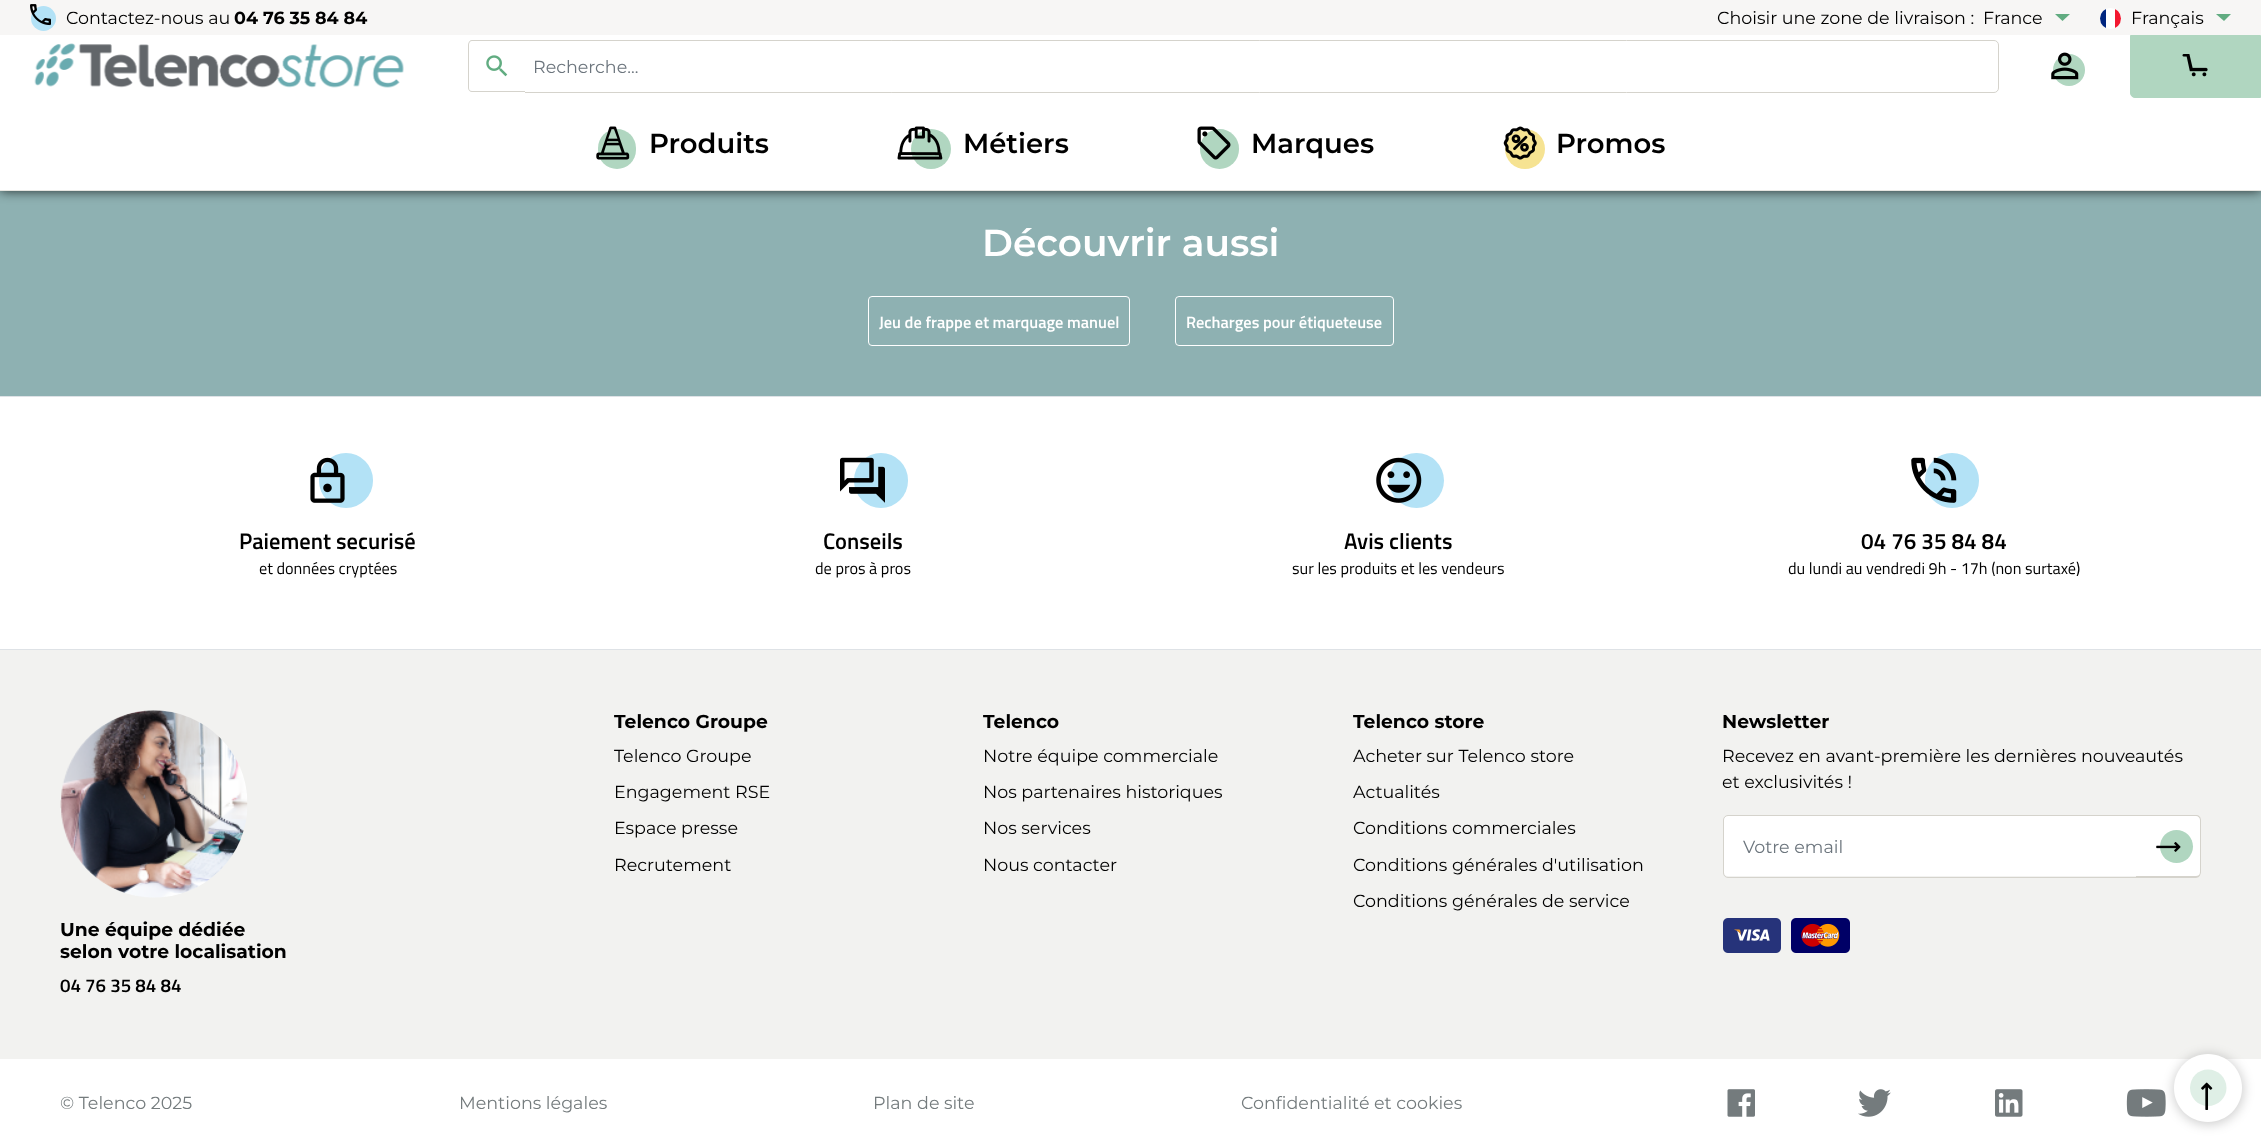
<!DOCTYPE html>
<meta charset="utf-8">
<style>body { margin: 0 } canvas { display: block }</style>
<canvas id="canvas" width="2261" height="1141"></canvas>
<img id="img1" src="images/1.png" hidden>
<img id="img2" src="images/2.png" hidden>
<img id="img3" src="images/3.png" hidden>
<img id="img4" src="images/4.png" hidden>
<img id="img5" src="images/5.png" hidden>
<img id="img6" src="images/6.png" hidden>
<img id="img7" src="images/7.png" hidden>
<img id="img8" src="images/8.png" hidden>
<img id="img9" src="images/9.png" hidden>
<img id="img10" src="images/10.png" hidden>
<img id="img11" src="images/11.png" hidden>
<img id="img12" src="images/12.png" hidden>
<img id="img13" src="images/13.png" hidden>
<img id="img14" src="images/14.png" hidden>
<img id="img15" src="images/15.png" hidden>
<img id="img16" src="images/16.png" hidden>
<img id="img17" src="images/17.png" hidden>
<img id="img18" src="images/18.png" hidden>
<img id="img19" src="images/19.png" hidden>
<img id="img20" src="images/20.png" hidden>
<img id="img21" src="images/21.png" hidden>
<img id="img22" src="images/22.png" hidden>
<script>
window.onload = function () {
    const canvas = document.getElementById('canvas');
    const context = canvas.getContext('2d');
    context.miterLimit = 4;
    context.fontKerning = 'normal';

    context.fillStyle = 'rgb(255, 255, 255)';
    context.fillRect(0, 0, 2261, 1141);
    context.fillStyle = 'rgb(142, 177, 178)';
    context.fillRect(0, 191, 2261, 205);
    context.fillStyle = 'rgba(0, 0, 0, 0.75)';
    context.filter = 'blur(6px)';
    context.beginPath();
    context.rect(0, 0, 2261, 191);
    context.fill();
    context.filter = 'none';
    context.fillStyle = 'rgb(255, 255, 255)';
    context.fillRect(0, 35, 2261, 155);
    context.fillStyle = 'rgb(247, 246, 245)';
    context.fillRect(0, 0, 2261, 35);
    context.fillStyle = 'rgb(179, 226, 246)';
    context.beginPath();
    context.arc(43.5, 18.5, 12.5, 0, 2 * Math.PI);
    context.fill();
    context.drawImage(document.getElementById('img1'), 30, 4, 21, 22);
    context.fillStyle = 'rgb(97, 172, 129)';
    context.beginPath();
    context.moveTo(2055, 14);
    context.lineTo(2070, 14);
    context.lineTo(2062.5, 21);
    context.closePath();
    context.fill();
    context.fillStyle = 'rgb(255, 255, 255)';
    context.beginPath();
    context.arc(2110.5, 18.5, 10.5, 0, 2 * Math.PI);
    context.fill();
    context.save();
    context.beginPath();
    context.roundRect(2100, 8, 21, 21, 10.5);
    context.clip();
    context.fillStyle = 'rgb(0, 38, 127)';
    context.fillRect(2100, 8, 6, 21);
    context.fillStyle = 'rgb(243, 24, 48)';
    context.fillRect(2115, 8, 6, 21);
    context.restore();
    context.fillStyle = 'rgb(97, 172, 129)';
    context.beginPath();
    context.moveTo(2216, 14);
    context.lineTo(2231, 14);
    context.lineTo(2224, 21);
    context.closePath();
    context.fill();
    context.drawImage(document.getElementById('img2'), 34, 43, 370, 45);
    context.beginPath();
    context.roundRect(524.5, 40.5, 1474, 52, [0, 4.5, 4.5, 0]);
    context.strokeStyle = 'rgb(213, 211, 204)';
    context.stroke();
    context.fillStyle = 'rgb(255, 255, 255)';
    context.beginPath();
    context.roundRect(468, 40, 57, 53, [5, 0, 0, 5]);
    context.fill();
    context.fillStyle = 'rgb(213, 211, 204)';
    context.beginPath();
    context.moveTo(472, 40);
    context.lineTo(525, 40);
    context.lineTo(525, 92);
    context.lineTo(472, 92);
    context.bezierCurveTo(470, 92, 468, 90, 468, 88);
    context.lineTo(468, 45);
    context.bezierCurveTo(468, 42, 470, 40, 472, 40);
    context.closePath();
    context.moveTo(472, 41);
    context.lineTo(525, 41);
    context.lineTo(525, 91);
    context.lineTo(472, 91);
    context.bezierCurveTo(470, 91, 469, 90, 469, 88);
    context.lineTo(469, 45);
    context.bezierCurveTo(469, 43, 470, 41, 472, 41);
    context.closePath();
    context.fill('evenodd');
    context.drawImage(document.getElementById('img3'), 486, 55, 22, 22);
    context.fillStyle = 'rgb(176, 214, 192)';
    context.beginPath();
    context.arc(2069, 70, 16, 0, 2 * Math.PI);
    context.fill();
    context.drawImage(document.getElementById('img4'), 2051, 52, 28, 28);
    context.beginPath();
    context.roundRect(2130.5, 35.5, 130, 62, [0, 0, 0, 4.5]);
    context.fill();
    context.strokeStyle = 'rgb(176, 214, 192)';
    context.stroke();
    context.drawImage(document.getElementById('img5'), 2182, 54, 26, 23);
    context.fillStyle = 'rgb(230, 229, 224)';
    context.fillRect(0, 190, 2261, 1);
    context.fillStyle = 'rgb(176, 214, 192)';
    context.beginPath();
    context.roundRect(598, 129, 38, 40, 19);
    context.fill();
    context.drawImage(document.getElementById('img6'), 596, 126, 34, 34);
    context.beginPath();
    context.arc(931, 149, 20, 0, 2 * Math.PI);
    context.fill();
    context.drawImage(document.getElementById('img7'), 897, 126, 46, 34);
    context.beginPath();
    context.roundRect(1200, 129, 39, 40, 19.5);
    context.fill();
    context.drawImage(document.getElementById('img8'), 1197, 126, 34, 34);
    context.fillStyle = 'rgb(246, 227, 146)';
    context.beginPath();
    context.arc(1525, 149, 20, 0, 2 * Math.PI);
    context.fill();
    context.drawImage(document.getElementById('img9'), 1503, 126, 34, 34);
    context.beginPath();
    context.roundRect(868.5, 296.5, 261, 49, 3.5);
    context.strokeStyle = 'rgb(255, 255, 255)';
    context.stroke();
    context.beginPath();
    context.roundRect(1175.5, 296.5, 218, 49, 3.5);
    context.stroke();
    context.fillStyle = 'rgb(222, 226, 230)';
    context.fillRect(0, 396, 2261, 1);
    context.fillRect(0, 649, 2261, 1);
    context.fillStyle = 'rgb(179, 226, 246)';
    context.beginPath();
    context.roundRect(319, 453, 54, 55, 27);
    context.fill();
    context.drawImage(document.getElementById('img10'), 310, 457, 35, 46);
    context.beginPath();
    context.roundRect(854, 453, 54, 55, 27);
    context.fill();
    context.drawImage(document.getElementById('img11'), 840, 457, 45, 46);
    context.beginPath();
    context.arc(1416.5, 480.5, 27.5, 0, 2 * Math.PI);
    context.fill();
    context.drawImage(document.getElementById('img12'), 1376, 457, 46, 46);
    context.beginPath();
    context.roundRect(1925, 453, 54, 55, 27);
    context.fill();
    context.drawImage(document.getElementById('img13'), 1911, 457, 46, 46);
    context.fillStyle = 'rgb(242, 242, 240)';
    context.fillRect(0, 650, 2261, 409);
    context.fillStyle = 'rgb(255, 255, 255)';
    context.beginPath();
    context.roundRect(1724, 816, 412, 60, [4, 0, 0, 4]);
    context.fill();
    context.beginPath();
    context.roundRect(1723.5, 815.5, 414, 62, [4.5, 0, 0, 4.5]);
    context.strokeStyle = 'rgb(213, 211, 204)';
    context.stroke();
    context.beginPath();
    context.roundRect(2136, 815, 65, 63, [0, 5, 5, 0]);
    context.fill();
    context.fillStyle = 'rgb(213, 211, 204)';
    context.beginPath();
    context.moveTo(2136, 815);
    context.lineTo(2196, 815);
    context.bezierCurveTo(2199, 815, 2201, 817, 2201, 820);
    context.lineTo(2201, 872);
    context.bezierCurveTo(2201, 875, 2199, 878, 2196, 878);
    context.lineTo(2136, 878);
    context.closePath();
    context.moveTo(2136, 816);
    context.lineTo(2196, 816);
    context.bezierCurveTo(2198, 816, 2200, 818, 2200, 820);
    context.lineTo(2200, 872);
    context.bezierCurveTo(2200, 875, 2198, 876, 2196, 876);
    context.lineTo(2136, 876);
    context.closePath();
    context.fill('evenodd');
    context.fillStyle = 'rgb(176, 214, 192)';
    context.beginPath();
    context.arc(2176.5, 846.5, 16.5, 0, 2 * Math.PI);
    context.fill();
    context.drawImage(document.getElementById('img14'), 2156, 842, 25, 10);
    context.drawImage(document.getElementById('img15'), 1723, 918, 58, 35);
    context.drawImage(document.getElementById('img16'), 1791, 918, 59, 35);
    context.drawImage(document.getElementById('img17'), 60, 710, 188, 188);
    context.drawImage(document.getElementById('img18'), 1727, 1089, 28, 28);
    context.drawImage(document.getElementById('img19'), 1858, 1089, 33, 28);
    context.drawImage(document.getElementById('img20'), 1995, 1089, 28, 28);
    context.drawImage(document.getElementById('img21'), 2126, 1089, 40, 28);
    context.fillStyle = 'rgba(0, 0, 0, 0.19)';
    context.filter = 'blur(5.5px)';
    context.beginPath();
    context.roundRect(2173, 1054, 71, 71, 35.5);
    context.fill();
    context.filter = 'none';
    context.fillStyle = 'rgb(255, 255, 255)';
    context.beginPath();
    context.moveTo(2174, 1088);
    context.bezierCurveTo(2174, 1069, 2189, 1054, 2208, 1054);
    context.bezierCurveTo(2227, 1054, 2242, 1069, 2242, 1088);
    context.bezierCurveTo(2242, 1107, 2227, 1122, 2208, 1122);
    context.bezierCurveTo(2189, 1122, 2174, 1107, 2174, 1088);
    context.closePath();
    context.fill();
    context.fillStyle = 'rgb(223, 239, 230)';
    context.beginPath();
    context.moveTo(2190, 1088);
    context.bezierCurveTo(2190, 1077.5, 2198, 1069.5, 2208, 1069.5);
    context.bezierCurveTo(2218, 1069.5, 2226.5, 1077.5, 2226.5, 1088);
    context.bezierCurveTo(2226.5, 1098, 2218, 1106, 2208, 1106);
    context.bezierCurveTo(2198, 1106, 2190, 1098, 2190, 1088);
    context.closePath();
    context.fill();
    context.drawImage(document.getElementById('img22'), 2201, 1082, 12, 28);
    context.font = '17.5px Montserrat';
    context.fillStyle = 'rgb(0, 0, 0)';
    context.fillText('Contactez-nous au', 66, 24);
    context.font = 'bold 17.5px Montserrat';
    context.fillText('04 76 35 84 84', 234, 24);
    context.font = '17.5px Montserrat';
    context.fillText('Choisir une zone de livraison :', 1717, 24);
    context.fillText('France', 1983, 24);
    context.fillText('Français', 2131, 24);
    context.fillStyle = 'rgb(108, 117, 125)';
    context.fillText('Recherche...', 533, 73);
    context.font = '600 27.5px Montserrat';
    context.fillStyle = 'rgb(0, 0, 0)';
    context.fillText('Produits', 649, 153);
    context.fillText('Métiers', 963, 153);
    context.fillText('Marques', 1251, 153);
    context.fillText('Promos', 1556, 153);
    context.font = '600 37.5px Montserrat';
    context.fillStyle = 'rgb(255, 255, 255)';
    context.fillText('Découvrir aussi', 982, 256);
    context.font = '600 16.4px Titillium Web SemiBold';
    context.fillText('Jeu de frappe et marquage manuel', 879, 328);
    context.fillText('Recharges pour étiqueteuse', 1186, 328);
    context.font = '600 22.5px Titillium Web SemiBold';
    context.fillStyle = 'rgb(0, 0, 0)';
    context.fillText('Paiement securisé', 239, 549);
    context.font = '16.25px Titillium Web';
    context.fillText('et données cryptées', 259, 574);
    context.font = '600 22.5px Titillium Web SemiBold';
    context.fillText('Conseils', 823, 549);
    context.font = '16.25px Titillium Web';
    context.fillText('de pros à pros', 815, 574);
    context.font = '600 22.5px Titillium Web SemiBold';
    context.fillText('Avis clients', 1344, 549);
    context.font = '16.25px Titillium Web';
    context.fillText('sur les produits et les vendeurs', 1292, 574);
    context.font = '600 22.5px Titillium Web SemiBold';
    context.fillText('04 76 35 84 84', 1861, 549);
    context.font = '16.25px Titillium Web';
    context.fillText('du lundi au vendredi 9h - 17h (non surtaxé)', 1788, 574);
    context.font = 'bold 18.75px Montserrat';
    context.fillText('Telenco Groupe', 614, 728);
    context.font = '17.5px Montserrat';
    context.fillText('Telenco Groupe', 614, 762);
    context.fillText('Engagement RSE', 614, 798);
    context.fillText('Espace presse', 614, 834);
    context.fillText('Recrutement', 614, 871);
    context.font = 'bold 18.75px Montserrat';
    context.fillText('Telenco', 983, 728);
    context.font = '17.5px Montserrat';
    context.fillText('Notre équipe commerciale', 983, 762);
    context.fillText('Nos partenaires historiques', 983, 798);
    context.fillText('Nos services', 983, 834);
    context.fillText('Nous contacter', 983, 871);
    context.font = 'bold 18.75px Montserrat';
    context.fillText('Telenco store', 1353, 728);
    context.font = '17.5px Montserrat';
    context.fillText('Acheter sur Telenco store', 1353, 762);
    context.fillText('Actualités', 1353, 798);
    context.fillText('Conditions commerciales', 1353, 834);
    context.fillText('Conditions générales d\'utilisation', 1353, 871);
    context.fillText('Conditions générales de service', 1353, 907);
    context.font = 'bold 18.75px Montserrat';
    context.fillText('Newsletter', 1722, 728);
    context.font = '17.5px Montserrat';
    context.fillText('Recevez en avant-première les dernières nouveautés', 1722, 762);
    context.fillText('et exclusivités !', 1722, 788);
    context.fillStyle = 'rgb(108, 117, 125)';
    context.fillText('Votre email', 1743, 853);
    context.font = 'bold 18.75px Montserrat';
    context.fillStyle = 'rgb(0, 0, 0)';
    context.fillText('Une équipe dédiée', 60, 936);
    context.fillText('selon votre localisation', 60, 958);
    context.font = '600 18.75px Titillium Web SemiBold';
    context.fillText('04 76 35 84 84', 60, 992);
    context.font = '17.5px Montserrat';
    context.fillStyle = 'rgb(116, 123, 125)';
    context.fillText('© Telenco 2025', 60, 1109);
    context.fillText('Mentions légales', 459, 1109);
    context.fillText('Plan de site', 873, 1109);
    context.fillText('Confidentialité et cookies', 1241, 1109);
};
</script>
